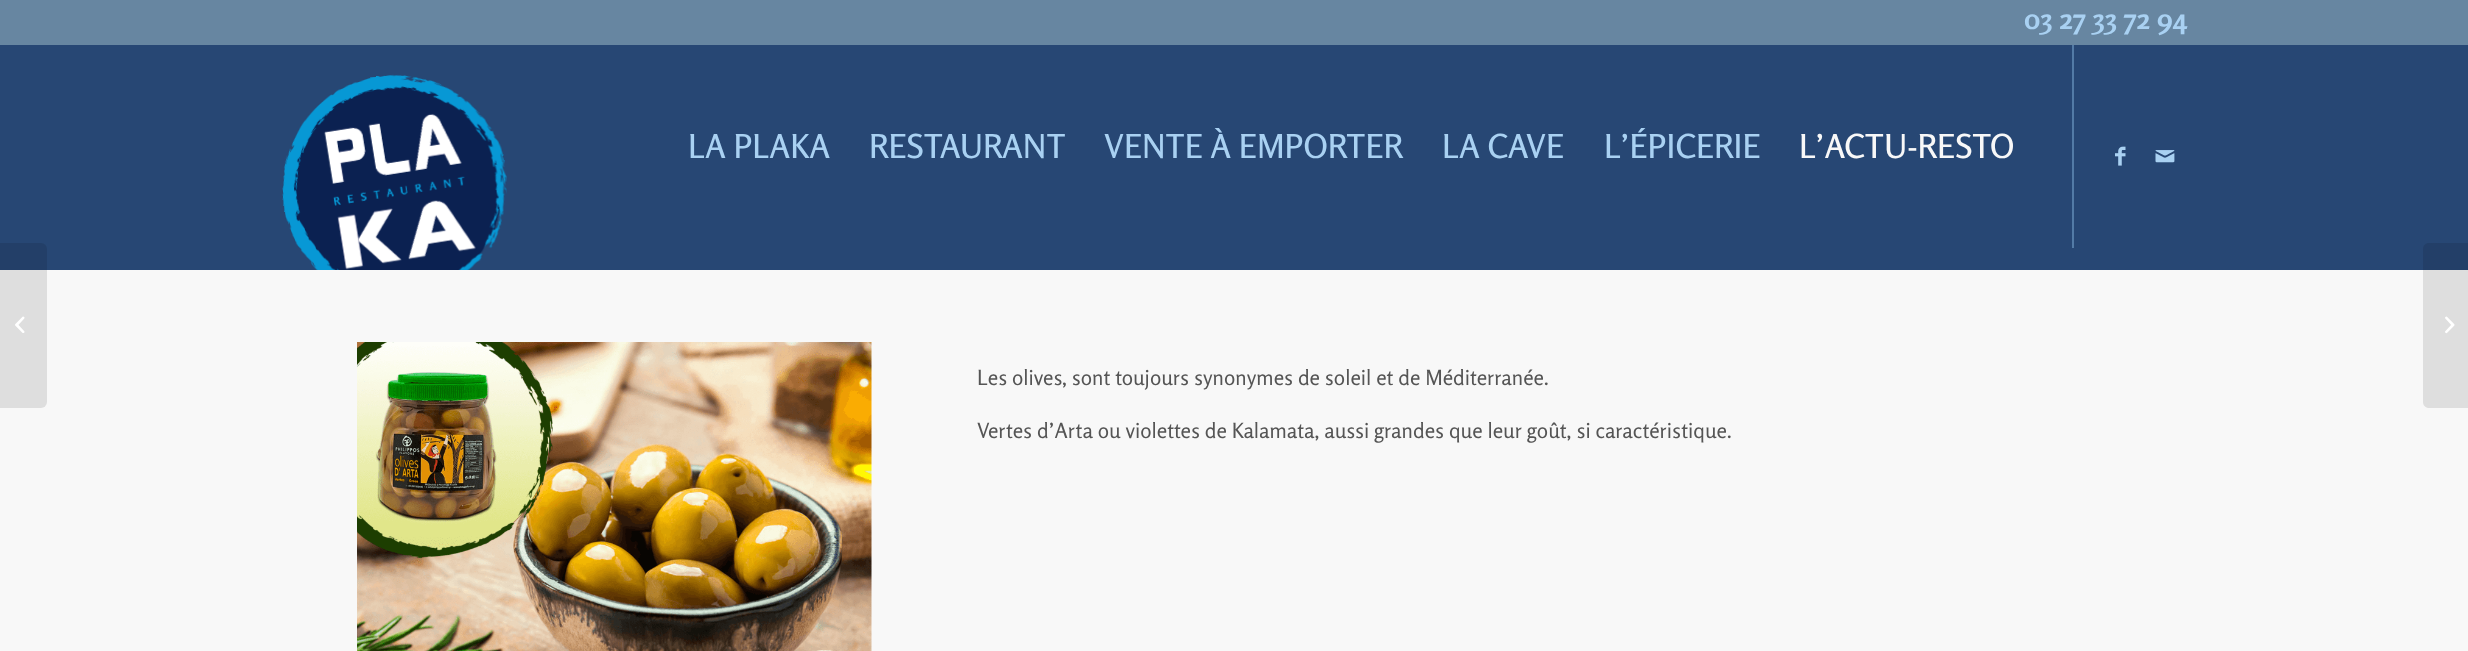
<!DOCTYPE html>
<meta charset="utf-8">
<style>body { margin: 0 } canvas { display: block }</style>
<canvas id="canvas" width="2468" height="651"></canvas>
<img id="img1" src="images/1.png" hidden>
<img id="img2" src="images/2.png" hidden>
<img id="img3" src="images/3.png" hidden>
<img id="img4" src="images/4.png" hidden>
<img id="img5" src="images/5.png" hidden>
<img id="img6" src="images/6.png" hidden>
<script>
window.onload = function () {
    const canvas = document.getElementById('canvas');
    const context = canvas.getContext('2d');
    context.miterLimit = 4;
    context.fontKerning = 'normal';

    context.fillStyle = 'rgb(248, 248, 248)';
    context.fillRect(0, 0, 2468, 651);
    context.fillStyle = 'rgb(103, 134, 161)';
    context.fillRect(0, 0, 2468, 45);
    context.fillStyle = 'rgb(39, 71, 116)';
    context.fillRect(0, 45, 2468, 225);
    context.drawImage(document.getElementById('img1'), 282, 74, 225, 196);
    context.fillStyle = 'rgb(83, 123, 166)';
    context.fillRect(2072, 45, 2, 203);
    context.drawImage(document.getElementById('img2'), 2115, 146, 11, 20);
    context.drawImage(document.getElementById('img3'), 2155, 150, 20, 13);
    context.fillStyle = 'rgba(0, 0, 0, 0.1)';
    context.beginPath();
    context.roundRect(0, 243, 47, 165, [0, 6, 6, 0]);
    context.fill();
    context.drawImage(document.getElementById('img4'), 15, 316, 10, 17);
    context.drawImage(document.getElementById('img5'), 357, 342, 515, 309);
    context.beginPath();
    context.moveTo(2429, 243);
    context.lineTo(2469, 243);
    context.lineTo(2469, 408);
    context.lineTo(2429, 408);
    context.bezierCurveTo(2425.5, 408, 2423, 405.5, 2423, 402);
    context.lineTo(2423, 249);
    context.bezierCurveTo(2423, 245.5, 2425.5, 243, 2429, 243);
    context.closePath();
    context.fill();
    context.drawImage(document.getElementById('img6'), 2445, 316, 10, 18);
    context.font = 'bold 29px Rosario';
    context.fillStyle = 'rgb(169, 209, 242)';
    context.fillText('03 27 33 72 94', 2024, 29);
    context.font = '500 33px Rosario';
    context.fillText('LA PLAKA', 688, 158);
    context.fillText('RESTAURANT', 869, 158);
    context.fillText('VENTE À EMPORTER', 1104, 158);
    context.fillText('LA CAVE', 1442, 158);
    context.fillText('L’ÉPICERIE', 1604, 158);
    context.fillStyle = 'rgb(248, 248, 248)';
    context.fillText('L’ACTU-RESTO', 1799, 158);
    context.font = '21px Rosario';
    context.fillStyle = 'rgb(85, 85, 85)';
    context.fillText('Les olives, sont toujours synonymes de soleil et de Méditerranée.', 977, 385);
    context.fillText('Vertes d’Arta ou violettes de Kalamata, aussi grandes que leur goût, si caractéristique.', 977, 438);
};
</script>
